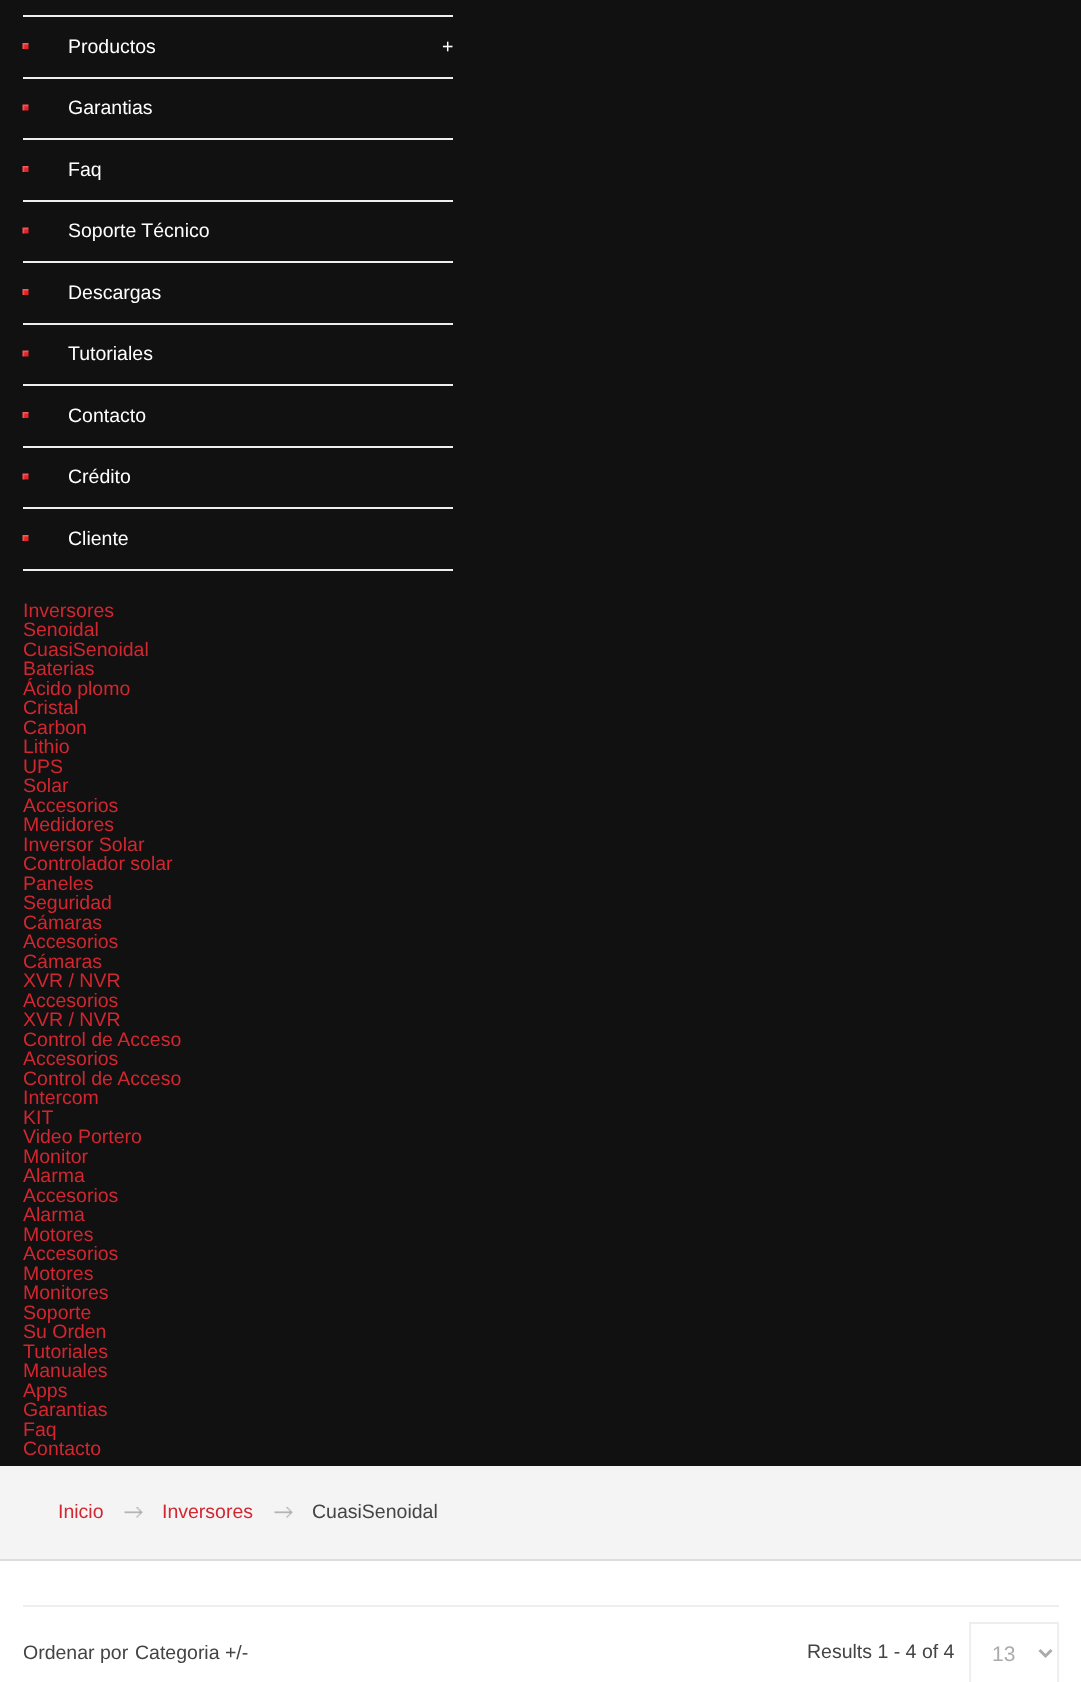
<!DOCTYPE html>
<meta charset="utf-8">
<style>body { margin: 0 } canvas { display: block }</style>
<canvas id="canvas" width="1081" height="1682"></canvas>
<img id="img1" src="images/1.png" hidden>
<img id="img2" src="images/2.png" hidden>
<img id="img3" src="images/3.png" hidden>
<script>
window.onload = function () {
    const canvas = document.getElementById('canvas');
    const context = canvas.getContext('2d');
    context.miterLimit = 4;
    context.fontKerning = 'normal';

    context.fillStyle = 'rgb(255, 255, 255)';
    context.fillRect(0, 0, 1081, 1682);
    context.fillStyle = 'rgb(17, 17, 17)';
    context.fillRect(0, 0, 1081, 1466);
    context.fillStyle = 'rgb(238, 238, 238)';
    context.fillRect(23, 15, 430, 2);
    context.drawImage(document.getElementById('img1'), 22, 43, 7, 6);
    context.fillRect(23, 77, 430, 2);
    context.drawImage(document.getElementById('img2'), 22, 104, 7, 7);
    context.fillRect(23, 138, 430, 2);
    context.drawImage(document.getElementById('img1'), 22, 166, 7, 6);
    context.fillRect(23, 200, 430, 2);
    context.drawImage(document.getElementById('img2'), 22, 227, 7, 7);
    context.fillRect(23, 261, 430, 2);
    context.drawImage(document.getElementById('img1'), 22, 289, 7, 6);
    context.fillRect(23, 323, 430, 2);
    context.drawImage(document.getElementById('img2'), 22, 350, 7, 7);
    context.fillRect(23, 384, 430, 2);
    context.drawImage(document.getElementById('img1'), 22, 412, 7, 6);
    context.fillRect(23, 446, 430, 2);
    context.drawImage(document.getElementById('img2'), 22, 473, 7, 7);
    context.fillRect(23, 507, 430, 2);
    context.drawImage(document.getElementById('img1'), 22, 535, 7, 6);
    context.fillRect(23, 569, 430, 2);
    context.fillStyle = 'rgb(244, 244, 244)';
    context.fillRect(0, 1466, 1081, 93);
    context.drawImage(document.getElementById('img3'), 124, 1507, 19, 11);
    context.drawImage(document.getElementById('img3'), 274, 1507, 19, 11);
    context.fillStyle = 'rgb(221, 221, 221)';
    context.fillRect(0, 1559, 1081, 2);
    context.fillStyle = 'rgb(238, 238, 238)';
    context.fillRect(23, 1605, 1036, 2);
    context.strokeStyle = 'rgb(238, 238, 238)';
    context.lineWidth = 2;
    context.strokeRect(970, 1623, 88, 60);
    context.beginPath();
    context.moveTo(1039.5, 1650);
    context.lineTo(1045.5, 1656);
    context.lineTo(1051.5, 1650);
    context.strokeStyle = 'rgb(172, 171, 171)';
    context.lineWidth = 3;
    context.stroke();
    context.font = '19.5px Arimo';
    context.fillStyle = 'rgb(255, 255, 255)';
    context.fillText('Productos', 68, 53);
    context.font = '19.5px Liberation Sans';
    context.fillText('+', 442, 53);
    context.font = '19.5px Arimo';
    context.fillText('Garantias', 68, 114);
    context.fillText('Faq', 68, 176);
    context.fillText('Soporte Técnico', 68, 237);
    context.fillText('Descargas', 68, 299);
    context.fillText('Tutoriales', 68, 360);
    context.fillText('Contacto', 68, 422);
    context.fillText('Crédito', 68, 483);
    context.fillText('Cliente', 68, 545);
    context.fillStyle = 'rgb(210, 38, 48)';
    context.fillText('Inversores', 23, 617);
    context.fillText('Senoidal', 23, 636);
    context.fillText('CuasiSenoidal', 23, 656);
    context.fillText('Baterias', 23, 675);
    context.fillText('Ácido plomo', 23, 695);
    context.fillText('Cristal', 23, 714);
    context.fillText('Carbon', 23, 734);
    context.fillText('Lithio', 23, 753);
    context.fillText('UPS', 23, 773);
    context.fillText('Solar', 23, 792);
    context.fillText('Accesorios', 23, 812);
    context.fillText('Medidores', 23, 831);
    context.fillText('Inversor Solar', 23, 851);
    context.fillText('Controlador solar', 23, 870);
    context.fillText('Paneles', 23, 890);
    context.fillText('Seguridad', 23, 909);
    context.fillText('Cámaras', 23, 929);
    context.fillText('Accesorios', 23, 948);
    context.fillText('Cámaras', 23, 968);
    context.fillText('XVR / NVR', 23, 987);
    context.fillText('Accesorios', 23, 1007);
    context.fillText('XVR / NVR', 23, 1026);
    context.fillText('Control de Acceso', 23, 1046);
    context.fillText('Accesorios', 23, 1065);
    context.fillText('Control de Acceso', 23, 1085);
    context.fillText('Intercom', 23, 1104);
    context.fillText('KIT', 23, 1124);
    context.fillText('Video Portero', 23, 1143);
    context.fillText('Monitor', 23, 1163);
    context.fillText('Alarma', 23, 1182);
    context.fillText('Accesorios', 23, 1202);
    context.fillText('Alarma', 23, 1221);
    context.fillText('Motores', 23, 1241);
    context.fillText('Accesorios', 23, 1260);
    context.fillText('Motores', 23, 1280);
    context.fillText('Monitores', 23, 1299);
    context.fillText('Soporte', 23, 1319);
    context.fillText('Su Orden', 23, 1338);
    context.fillText('Tutoriales', 23, 1358);
    context.fillText('Manuales', 23, 1377);
    context.fillText('Apps', 23, 1397);
    context.fillText('Garantias', 23, 1416);
    context.fillText('Faq', 23, 1436);
    context.fillText('Contacto', 23, 1455);
    context.fillText('Inicio', 58, 1518);
    context.fillText('Inversores', 162, 1518);
    context.fillStyle = 'rgb(68, 68, 68)';
    context.fillText('CuasiSenoidal', 312, 1518);
    context.fillText('Ordenar por', 23, 1659);
    context.fillText('Categoria +/-', 135, 1659);
    context.fillText('Results 1 - 4 of 4', 807, 1658);
    context.font = '21px Arimo';
    context.fillStyle = 'rgb(172, 171, 171)';
    context.fillText('13', 992, 1661);
};
</script>
